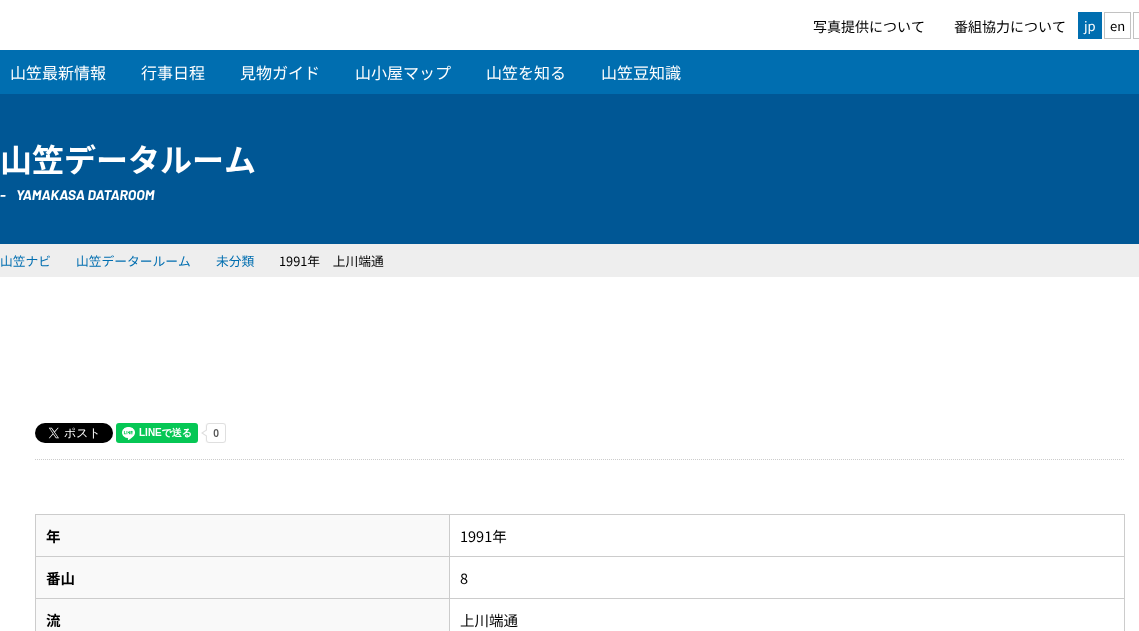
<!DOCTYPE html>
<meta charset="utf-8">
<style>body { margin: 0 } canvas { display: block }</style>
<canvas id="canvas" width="1139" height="631"></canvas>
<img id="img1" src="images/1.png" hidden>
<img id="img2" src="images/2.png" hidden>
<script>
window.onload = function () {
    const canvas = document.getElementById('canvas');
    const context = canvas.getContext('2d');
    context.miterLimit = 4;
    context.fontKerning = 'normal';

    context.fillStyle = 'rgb(255, 255, 255)';
    context.fillRect(0, 0, 1139, 631);
    context.fillStyle = 'rgb(0, 110, 176)';
    context.fillRect(1078, 12, 24, 27);
    context.strokeStyle = 'rgb(194, 194, 194)';
    context.strokeRect(1104.5, 12.5, 26, 26);
    context.strokeRect(1133.5, 12.5, 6, 26);
    context.fillRect(0, 50, 1139, 44);
    context.fillStyle = 'rgb(0, 87, 149)';
    context.fillRect(0, 94, 1139, 150);
    context.fillStyle = 'rgb(238, 238, 238)';
    context.fillRect(0, 244, 1139, 33);
    context.beginPath();
    context.moveTo(35, 459.5);
    context.lineTo(1125, 459.5);
    context.strokeStyle = 'rgb(204, 204, 204)';
    context.setLineDash([1, 1]);
    context.stroke();
    context.drawImage(document.getElementById('img1'), 35, 423, 78, 20);
    context.drawImage(document.getElementById('img2'), 116, 423, 110, 20);
    context.fillStyle = 'rgb(204, 204, 204)';
    context.fillRect(35, 514, 1090, 1);
    context.fillRect(1124, 514, 1, 117);
    context.fillRect(35, 514, 1, 117);
    context.fillStyle = 'rgb(249, 249, 249)';
    context.fillRect(36, 515, 413, 41);
    context.fillStyle = 'rgb(204, 204, 204)';
    context.fillRect(449, 556, 676, 1);
    context.fillRect(449, 598, 676, 1);
    context.fillRect(449, 598, 1, 33);
    context.fillRect(35, 598, 415, 1);
    context.fillRect(449, 556, 1, 43);
    context.fillRect(35, 556, 415, 1);
    context.fillRect(449, 514, 1, 43);
    context.fillStyle = 'rgb(249, 249, 249)';
    context.fillRect(36, 557, 413, 41);
    context.fillRect(36, 599, 413, 32);
    context.font = '14px Noto Sans JP';
    context.fillStyle = 'rgb(0, 0, 0)';
    context.fillText('写真提供について', 813, 32);
    context.fillText('番組協力について', 954, 32);
    context.font = '13px Noto Sans JP';
    context.fillStyle = 'rgb(255, 255, 255)';
    context.fillText('jp', 1084, 31);
    context.fillStyle = 'rgb(0, 0, 0)';
    context.fillText('en', 1110, 31);
    context.font = '16px Noto Sans JP';
    context.fillStyle = 'rgb(255, 255, 255)';
    context.fillText('山笠最新情報', 10, 79);
    context.fillText('行事日程', 141, 79);
    context.fillText('見物ガイド', 240, 79);
    context.fillText('山小屋マップ', 355, 79);
    context.fillText('山笠を知る', 486, 79);
    context.fillText('山笠豆知識', 601, 79);
    context.font = 'bold 32px Noto Sans JP';
    context.fillText('山笠データルーム', 0, 172);
    context.font = 'italic bold 14px Barlow';
    context.fillText('-', 0, 200);
    context.fillText('YAMAKASA DATAROOM', 16, 200);
    context.font = '12.75px Noto Sans JP';
    context.fillStyle = 'rgb(0, 110, 176)';
    context.fillText('山笠ナビ', 0, 266);
    context.fillText('山笠データールーム', 76, 266);
    context.fillText('未分類', 216, 266);
    context.fillStyle = 'rgb(0, 0, 0)';
    context.fillText('1991年　上川端通', 279, 266);
    context.font = 'bold 14.5px Noto Sans JP';
    context.fillText('年', 46, 542);
    context.font = '14.5px Noto Sans JP';
    context.fillText('1991年', 460, 542);
    context.font = 'bold 14.5px Noto Sans JP';
    context.fillText('番山', 46, 584);
    context.font = '14.5px Noto Sans JP';
    context.fillText('8', 460, 584);
    context.font = 'bold 14.5px Noto Sans JP';
    context.fillText('流', 46, 626);
    context.font = '14.5px Noto Sans JP';
    context.fillText('上川端通', 460, 626);
};
</script>
